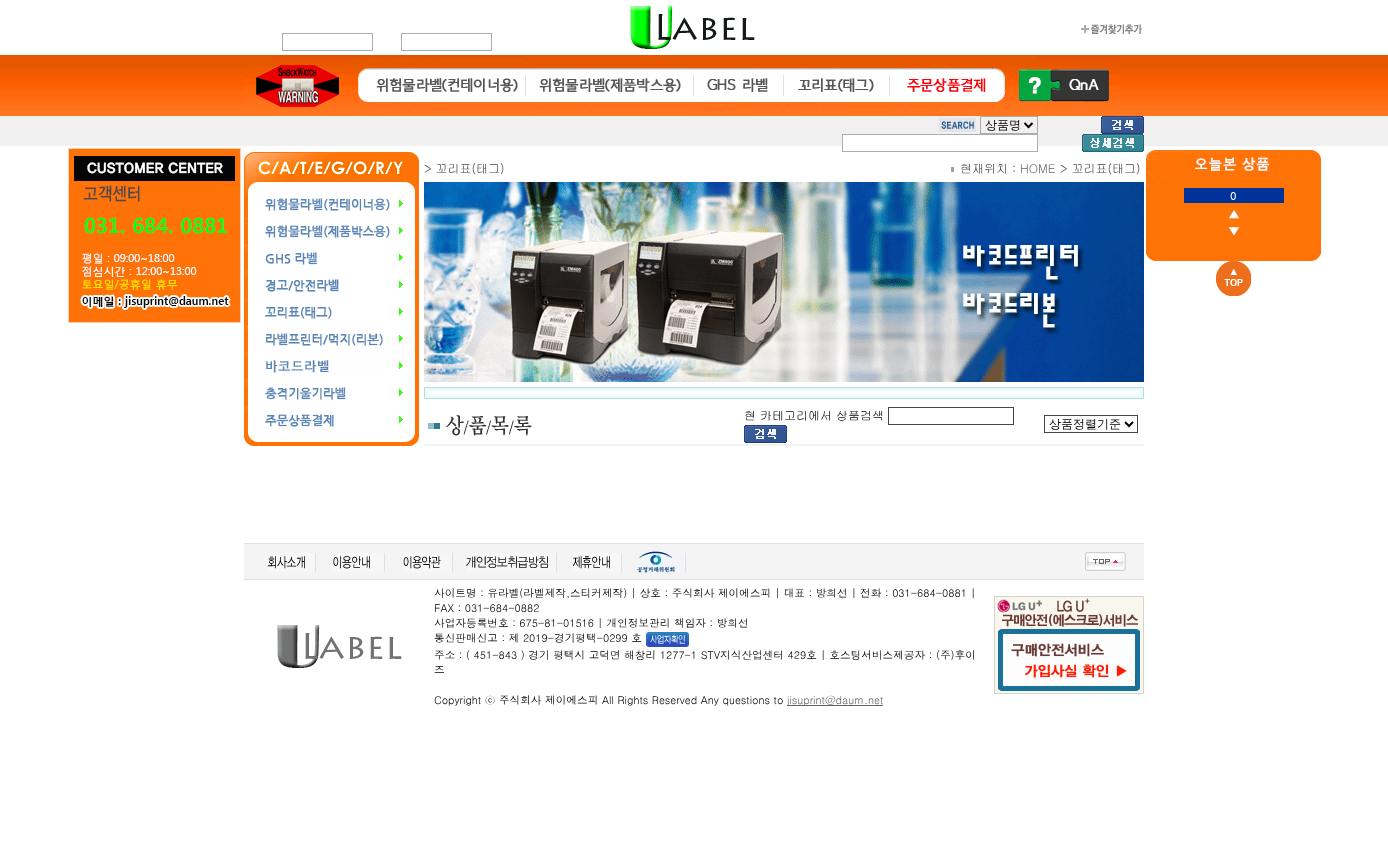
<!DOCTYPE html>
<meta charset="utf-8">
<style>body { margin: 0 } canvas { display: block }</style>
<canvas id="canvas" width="1388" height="841"></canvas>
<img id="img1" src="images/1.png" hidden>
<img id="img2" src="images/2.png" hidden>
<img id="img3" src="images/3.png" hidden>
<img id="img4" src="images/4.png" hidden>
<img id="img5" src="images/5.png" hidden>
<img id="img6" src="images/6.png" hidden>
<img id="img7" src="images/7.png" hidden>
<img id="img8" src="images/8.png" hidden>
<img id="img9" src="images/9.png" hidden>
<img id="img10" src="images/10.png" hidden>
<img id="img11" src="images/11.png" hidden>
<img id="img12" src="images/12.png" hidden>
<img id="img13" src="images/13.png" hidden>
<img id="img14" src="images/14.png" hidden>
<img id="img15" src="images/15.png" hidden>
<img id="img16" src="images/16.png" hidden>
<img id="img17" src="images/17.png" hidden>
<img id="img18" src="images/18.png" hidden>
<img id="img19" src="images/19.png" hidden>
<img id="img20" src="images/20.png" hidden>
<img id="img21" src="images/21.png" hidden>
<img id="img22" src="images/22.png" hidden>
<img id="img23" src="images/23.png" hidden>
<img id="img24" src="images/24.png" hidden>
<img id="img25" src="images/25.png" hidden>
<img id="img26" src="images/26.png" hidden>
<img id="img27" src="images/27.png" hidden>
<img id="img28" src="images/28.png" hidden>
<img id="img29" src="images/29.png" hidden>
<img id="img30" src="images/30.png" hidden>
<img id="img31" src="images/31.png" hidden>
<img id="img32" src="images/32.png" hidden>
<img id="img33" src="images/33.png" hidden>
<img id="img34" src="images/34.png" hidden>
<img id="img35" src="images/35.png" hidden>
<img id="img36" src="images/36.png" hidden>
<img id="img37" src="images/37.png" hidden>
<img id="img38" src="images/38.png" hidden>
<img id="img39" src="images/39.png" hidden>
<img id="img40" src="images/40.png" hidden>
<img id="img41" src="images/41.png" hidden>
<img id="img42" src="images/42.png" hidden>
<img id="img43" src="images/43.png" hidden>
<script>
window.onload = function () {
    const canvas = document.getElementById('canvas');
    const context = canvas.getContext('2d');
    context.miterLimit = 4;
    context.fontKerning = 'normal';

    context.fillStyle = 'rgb(255, 255, 255)';
    context.fillRect(0, 0, 1388, 841);
    context.drawImage(document.getElementById('img1'), 0, 55, 1388, 91);
    context.drawImage(document.getElementById('img2'), 630, 6, 125, 43);
    context.drawImage(document.getElementById('img3'), 1081, 24, 61, 10);
    context.strokeStyle = 'rgb(172, 172, 172)';
    context.strokeRect(282.5, 33.5, 90, 17);
    context.strokeRect(401.5, 33.5, 90, 17);
    context.drawImage(document.getElementById('img4'), 244, 56, 109, 58);
    context.drawImage(document.getElementById('img5'), 353, 56, 172, 58);
    context.drawImage(document.getElementById('img6'), 525, 66, 168, 48);
    context.drawImage(document.getElementById('img7'), 693, 65, 90, 49);
    context.drawImage(document.getElementById('img8'), 783, 59, 106, 55);
    context.drawImage(document.getElementById('img9'), 889, 64, 121, 51);
    context.drawImage(document.getElementById('img10'), 1010, 56, 109, 58);
    context.drawImage(document.getElementById('img11'), 939, 118, 37, 14);
    context.strokeRect(980.5, 116.5, 57, 17);
    context.beginPath();
    context.moveTo(1024.5, 123);
    context.lineTo(1028.5, 127);
    context.lineTo(1032.5, 123);
    context.strokeStyle = 'rgb(0, 0, 0)';
    context.lineWidth = 2;
    context.stroke();
    context.fillRect(843, 135, 194, 11);
    context.strokeStyle = 'rgb(172, 172, 172)';
    context.lineWidth = 1;
    context.strokeRect(842.5, 134.5, 195, 17);
    context.drawImage(document.getElementById('img12'), 1101, 116, 43, 18);
    context.drawImage(document.getElementById('img13'), 1082, 134, 62, 18);
    context.drawImage(document.getElementById('img14'), 68, 148, 173, 175);
    context.drawImage(document.getElementById('img15'), 1146, 150, 175, 38);
    context.fillStyle = 'rgb(255, 116, 6)';
    context.fillRect(1146, 188, 175, 51);
    context.fillStyle = 'rgb(0, 51, 153)';
    context.fillRect(1184, 188, 100, 15);
    context.drawImage(document.getElementById('img16'), 1229, 210, 10, 9);
    context.drawImage(document.getElementById('img17'), 1229, 227, 10, 9);
    context.drawImage(document.getElementById('img18'), 1146, 239, 175, 22);
    context.drawImage(document.getElementById('img19'), 1216, 261, 35, 35);
    context.drawImage(document.getElementById('img20'), 244, 152, 175, 38);
    context.drawImage(document.getElementById('img21'), 244, 190, 175, 27);
    context.drawImage(document.getElementById('img22'), 244, 217, 175, 27);
    context.drawImage(document.getElementById('img23'), 244, 244, 175, 27);
    context.drawImage(document.getElementById('img24'), 244, 271, 175, 27);
    context.drawImage(document.getElementById('img25'), 244, 298, 175, 27);
    context.drawImage(document.getElementById('img26'), 244, 325, 175, 27);
    context.drawImage(document.getElementById('img27'), 244, 352, 175, 27);
    context.drawImage(document.getElementById('img28'), 244, 379, 175, 27);
    context.drawImage(document.getElementById('img29'), 244, 406, 175, 27);
    context.drawImage(document.getElementById('img30'), 244, 433, 175, 13);
    context.fillStyle = 'rgb(161, 161, 161)';
    context.fillRect(951, 167, 3, 5);
    context.drawImage(document.getElementById('img31'), 424, 182, 720, 200);
    context.fillStyle = 'rgb(176, 225, 225)';
    context.fillRect(424, 387, 720, 12);
    context.fillStyle = 'rgb(236, 249, 249)';
    context.fillRect(425, 388, 718, 10);
    context.fillStyle = 'rgb(255, 255, 255)';
    context.fillRect(428, 391, 712, 4);
    context.drawImage(document.getElementById('img32'), 428, 415, 104, 21);
    context.strokeStyle = 'rgb(70, 70, 70)';
    context.strokeRect(888.5, 407.5, 125, 17);
    context.drawImage(document.getElementById('img33'), 744, 425, 43, 18);
    context.strokeRect(1044.5, 415.5, 93, 17);
    context.beginPath();
    context.moveTo(1125, 422);
    context.lineTo(1129, 426);
    context.lineTo(1133, 422);
    context.strokeStyle = 'rgb(0, 0, 0)';
    context.lineWidth = 2;
    context.stroke();
    context.fillStyle = 'rgb(242, 242, 242)';
    context.fillRect(424, 444, 720, 2);
    context.fillStyle = 'rgb(225, 225, 225)';
    context.fillRect(244, 543, 900, 1);
    context.fillStyle = 'rgb(244, 244, 244)';
    context.fillRect(244, 544, 900, 35);
    context.drawImage(document.getElementById('img34'), 268, 553, 48, 19);
    context.drawImage(document.getElementById('img35'), 333, 553, 52, 19);
    context.drawImage(document.getElementById('img36'), 403, 553, 50, 19);
    context.drawImage(document.getElementById('img37'), 466, 553, 91, 19);
    context.drawImage(document.getElementById('img38'), 573, 553, 49, 19);
    context.drawImage(document.getElementById('img39'), 637, 551, 49, 22);
    context.drawImage(document.getElementById('img40'), 1084, 552, 42, 19);
    context.fillStyle = 'rgb(225, 225, 225)';
    context.fillRect(244, 579, 900, 1);
    context.drawImage(document.getElementById('img41'), 277, 625, 125, 43);
    context.drawImage(document.getElementById('img42'), 646, 632, 43, 15);
    context.fillStyle = 'rgb(99, 99, 99)';
    context.fillRect(787, 705, 96, 1);
    context.drawImage(document.getElementById('img43'), 994, 596, 150, 98);
    context.font = '500 12px WenQuanYi Zen Hei';
    context.fillStyle = 'rgb(0, 0, 0)';
    context.fillText('상품명', 985, 129);
    context.font = 'bold 10.67px Dotum';
    context.fillStyle = 'rgb(255, 255, 255)';
    context.fillText('0', 1230, 200);
    context.font = '12px Gulim';
    context.fillStyle = 'rgb(70, 70, 70)';
    context.fillText('> 꼬리표(태그)', 424, 173);
    context.fillText('현재위치 :', 960, 173);
    context.fillStyle = 'rgb(99, 99, 99)';
    context.fillText('HOME', 1020, 173);
    context.fillStyle = 'rgb(70, 70, 70)';
    context.fillText('> 꼬리표(태그)', 1060, 173);
    context.fillStyle = 'rgb(0, 0, 0)';
    context.fillText('현 카테고리에서 상품검색', 744, 420);
    context.font = '500 12px WenQuanYi Zen Hei';
    context.fillText('상품정렬기준', 1049, 428);
    context.font = '10.67px Dotum';
    context.fillText('사이트명 : 유라벨(라벨제작,스티커제작) | 상호 : 주식회사 제이에스피 | 대표 : 방희선 | 전화 : 031-684-0881 |', 434, 597);
    context.fillText('FAX : 031-684-0882', 434, 612);
    context.fillText('사업자등록번호 : 675-81-01516 | 개인정보관리 책임자 : 방희선', 434, 627);
    context.fillText('통신판매신고 : 제 2019-경기평택-0299 호', 434, 642);
    context.fillText('주소 : ( 451-843 ) 경기 평택시 고덕면 해창리 1277-1 STV지식산업센터 429호 | 호스팅서비스제공자 : (주)후이', 434, 659);
    context.fillText('즈', 434, 674);
    context.fillText('Copyright ⓒ 주식회사 제이에스피 All Rights Reserved Any questions to', 434, 704);
    context.fillStyle = 'rgb(99, 99, 99)';
    context.fillText('jisuprint@daum.net', 787, 704);
};
</script>
